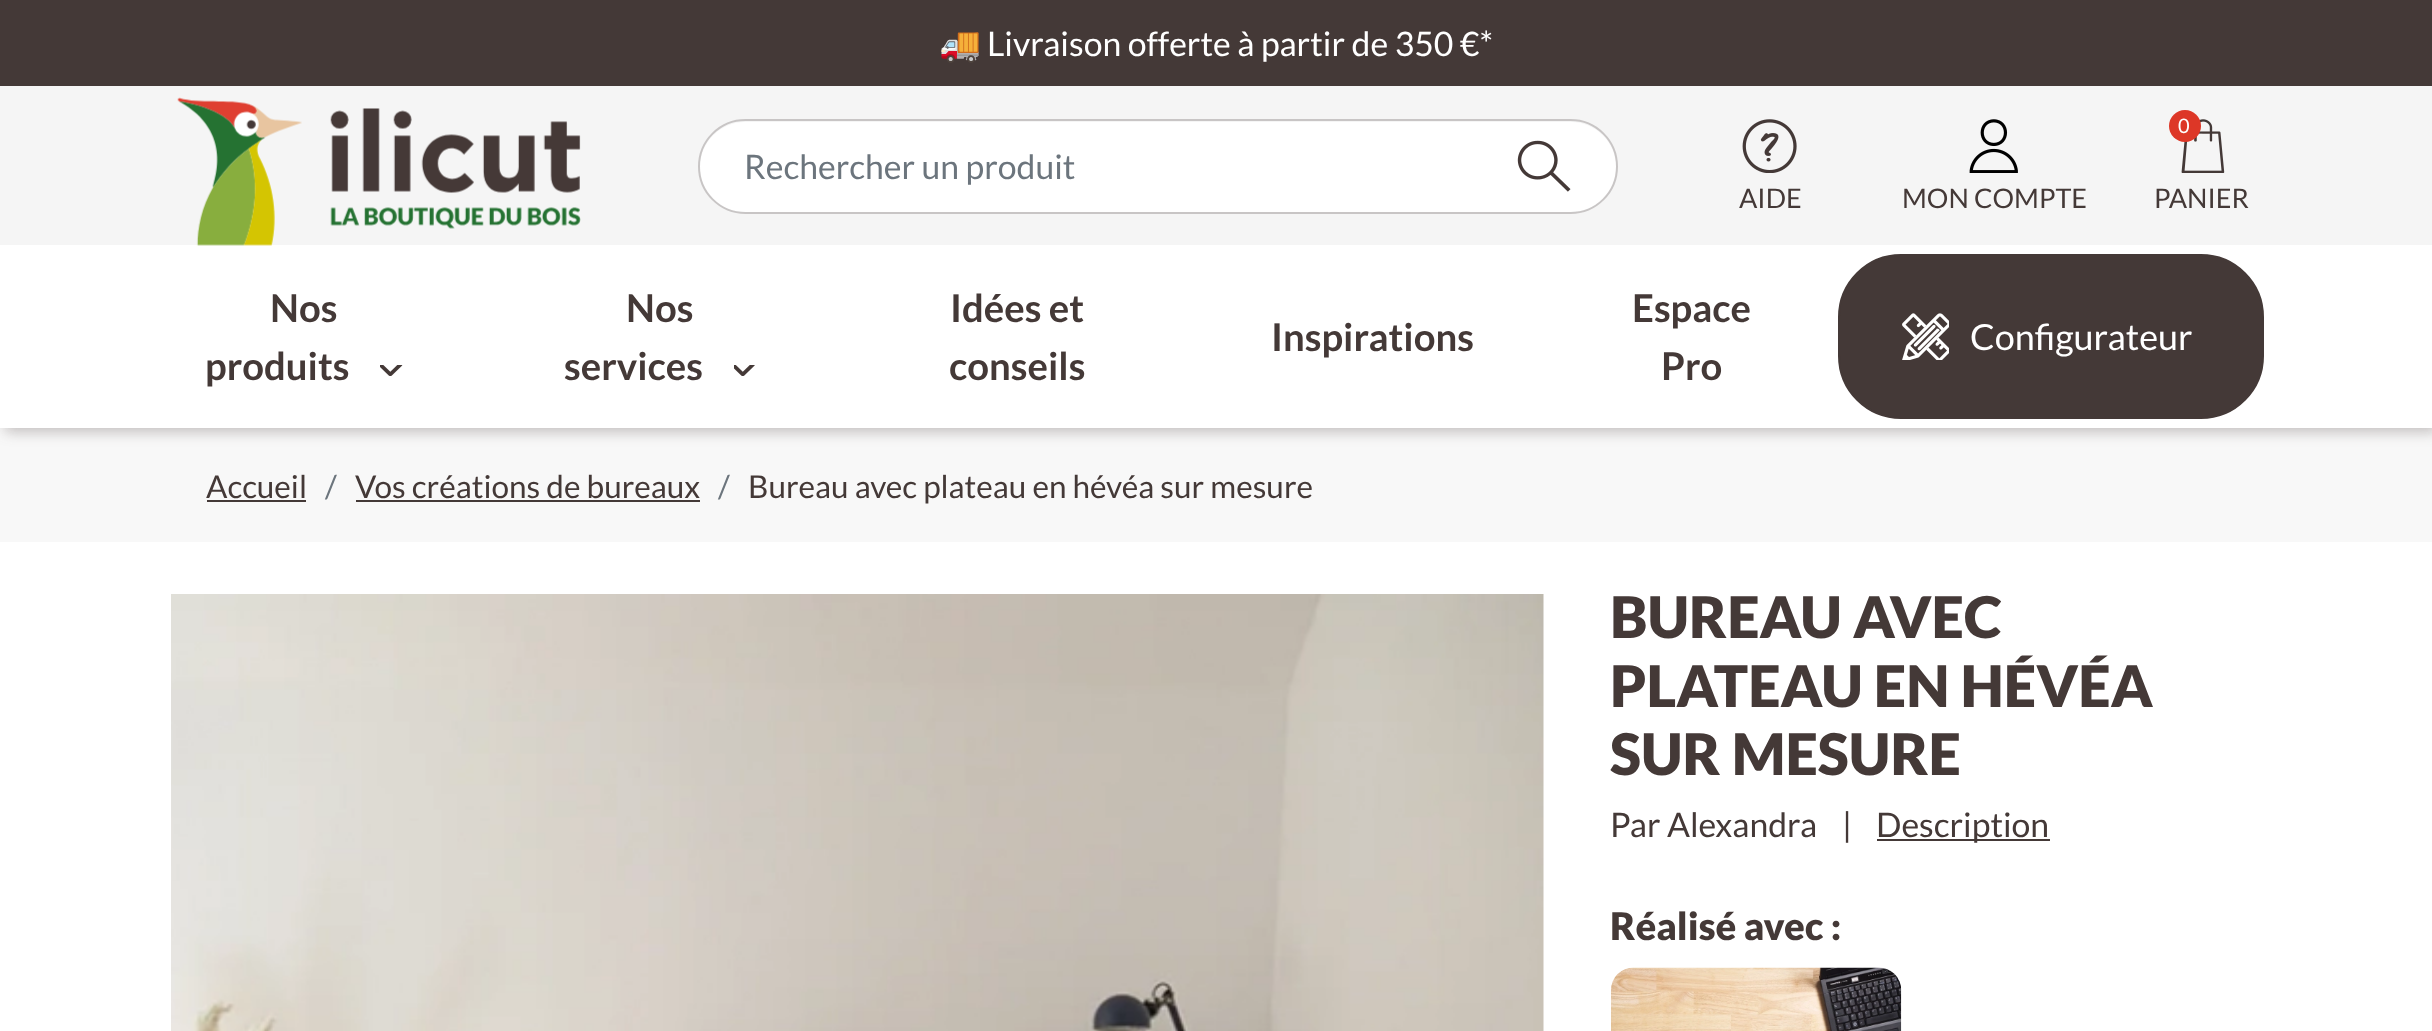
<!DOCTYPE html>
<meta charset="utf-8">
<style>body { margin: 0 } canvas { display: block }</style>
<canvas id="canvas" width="2432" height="1031"></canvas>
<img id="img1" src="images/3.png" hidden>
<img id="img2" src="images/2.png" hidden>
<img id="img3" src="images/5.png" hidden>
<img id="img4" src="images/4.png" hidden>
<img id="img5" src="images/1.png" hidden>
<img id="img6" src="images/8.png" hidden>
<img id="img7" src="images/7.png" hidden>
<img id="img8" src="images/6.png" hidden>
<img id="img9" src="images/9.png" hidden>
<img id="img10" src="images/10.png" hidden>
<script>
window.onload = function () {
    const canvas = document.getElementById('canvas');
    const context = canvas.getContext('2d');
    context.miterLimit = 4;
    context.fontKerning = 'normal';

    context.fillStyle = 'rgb(255, 255, 255)';
    context.fillRect(0, 0, 2432, 1031);
    context.fillStyle = 'rgb(68, 57, 55)';
    context.fillRect(1877, 839, 173, 2);
    context.font = '900 57.25px Lato';
    context.fillText('BUREAU AVEC', 1610, 638);
    context.fillText('PLATEAU EN HÉVÉA', 1610, 707);
    context.fillText('SUR MESURE', 1610, 775);
    context.font = '33.75px Lato';
    context.fillText('Par Alexandra', 1610, 837);
    context.fillText('|', 1842, 837);
    context.fillText('Description', 1876, 837);
    context.save();
    context.beginPath();
    context.rect(0, 428, 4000, 114);
    context.clip();
    context.strokeStyle = 'rgb(248, 248, 248)';
    context.lineWidth = 2432;
    context.strokeRect(-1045, -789, 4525, 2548);
    context.restore();
    context.fillStyle = 'rgb(248, 248, 248)';
    context.fillRect(171, 428, 2093, 114);
    context.fillStyle = 'rgba(68, 57, 55, 0.3)';
    context.filter = 'blur(7px)';
    context.beginPath();
    context.rect(5, 250, 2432, 182);
    context.fill();
    context.filter = 'none';
    context.fillStyle = 'rgb(245, 245, 245)';
    context.fillRect(0, 86, 2432, 159);
    context.drawImage(document.getElementById('img1'), 2181, 119, 44, 54);
    context.fillStyle = 'rgb(221, 55, 39)';
    context.beginPath();
    context.arc(2185, 126, 16, 0, 2 * Math.PI);
    context.fill();
    context.font = '20px Lato';
    context.fillStyle = 'rgb(255, 255, 255)';
    context.fillText('0', 2178, 133);
    context.font = '27px Lato';
    context.fillStyle = 'rgb(68, 57, 55)';
    context.fillText('PANIER', 2154, 208);
    context.fillStyle = 'rgb(255, 255, 255)';
    context.beginPath();
    context.roundRect(700, 122, 916, 90, 45);
    context.fill();
    context.beginPath();
    context.roundRect(699, 120, 918, 93, 46.5);
    context.strokeStyle = 'rgba(68, 57, 55, 0.25)';
    context.lineWidth = 2;
    context.stroke();
    context.drawImage(document.getElementById('img2'), 1517, 140, 54, 52);
    context.font = '33.75px Lato';
    context.fillStyle = 'rgb(108, 117, 125)';
    context.fillText('Rechercher un produit', 744, 179);
    context.drawImage(document.getElementById('img3'), 1969, 119, 49, 54);
    context.drawImage(document.getElementById('img4'), 1742, 119, 55, 54);
    context.font = '27px Lato';
    context.fillStyle = 'rgb(68, 57, 55)';
    context.fillText('MON COMPTE', 1902, 208);
    context.fillText('AIDE', 1739, 208);
    context.fillStyle = 'rgb(255, 255, 255)';
    context.fillRect(0, 245, 2432, 183);
    context.drawImage(document.getElementById('img5'), 177, 97, 404, 149);
    context.fillStyle = 'rgb(68, 57, 55)';
    context.fillRect(0, 0, 2432, 86);
    context.font = '33.75px Lato';
    context.fillStyle = 'rgb(255, 255, 255)';
    context.fillText('Livraison offerte à partir de 350 €*', 987, 56);
    context.save();
    context.beginPath();
    context.rect(941, 18, 553, 50);
    context.clip();
    context.font = '33.75px Noto Color Emoji';
    context.fillText('🚚', 939, 56);
    context.restore();
    context.fillStyle = 'rgb(68, 57, 55)';
    context.beginPath();
    context.roundRect(1839, 255, 424, 163, 62);
    context.fill();
    context.strokeStyle = 'rgb(68, 57, 55)';
    context.stroke();
    context.drawImage(document.getElementById('img6'), 1902, 313, 47, 47);
    context.font = '36px Lato';
    context.fillStyle = 'rgb(255, 255, 255)';
    context.fillText('Configurateur', 1970, 350);
    context.drawImage(document.getElementById('img7'), 734, 365, 21, 11);
    context.drawImage(document.getElementById('img8'), 380, 365, 23, 11);
    context.font = 'bold 38.25px Lato';
    context.fillStyle = 'rgb(68, 57, 55)';
    context.fillText('Pro', 1661, 380);
    context.fillText('Espace', 1632, 322);
    context.fillText('Inspirations', 1271, 351);
    context.fillText('conseils', 949, 380);
    context.fillText('Idées et', 950, 322);
    context.fillText('services', 564, 380);
    context.fillText('Nos', 626, 322);
    context.fillText('produits', 205, 380);
    context.fillText('Nos', 270, 322);
    context.drawImage(document.getElementById('img9'), 171, 594, 1373, 437);
    context.font = '31.5px Lato';
    context.fillText('Bureau avec plateau en hévéa sur mesure', 748, 498);
    context.fillStyle = 'rgb(108, 117, 125)';
    context.fillText('/', 718, 498);
    context.fillStyle = 'rgb(68, 57, 55)';
    context.fillText('Vos créations de bureaux', 355, 498);
    context.fillRect(356, 500, 344, 2);
    context.fillStyle = 'rgb(108, 117, 125)';
    context.fillText('/', 325, 498);
    context.fillStyle = 'rgb(68, 57, 55)';
    context.fillText('Accueil', 206, 498);
    context.fillRect(207, 500, 99, 2);
    context.font = '900 38.25px Lato';
    context.fillText('Réalisé avec :', 1610, 940);
    context.drawImage(document.getElementById('img10'), 1611, 967, 291, 64);
};
</script>
